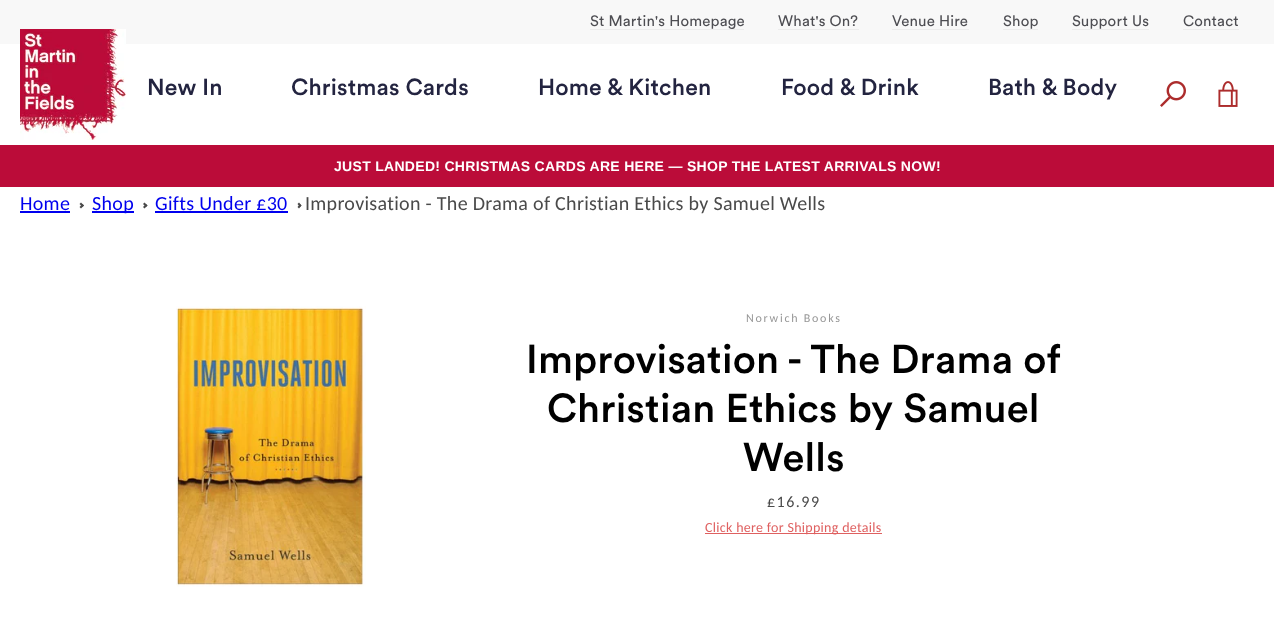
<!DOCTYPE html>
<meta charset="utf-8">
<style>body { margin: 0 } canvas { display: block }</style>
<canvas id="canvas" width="1274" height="628"></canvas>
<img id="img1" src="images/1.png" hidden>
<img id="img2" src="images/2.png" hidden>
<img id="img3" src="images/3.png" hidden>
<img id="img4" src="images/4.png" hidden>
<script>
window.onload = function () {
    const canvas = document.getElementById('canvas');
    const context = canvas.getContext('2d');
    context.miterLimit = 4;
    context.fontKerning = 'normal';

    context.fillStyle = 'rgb(255, 255, 255)';
    context.fillRect(0, 0, 1274, 628);
    context.fillStyle = 'rgb(248, 248, 248)';
    context.fillRect(0, 0, 1274, 44);
    context.drawImage(document.getElementById('img1'), 20, 29, 106, 111);
    context.fillStyle = 'rgb(236, 236, 236)';
    context.fillRect(590, 29, 154, 1);
    context.fillRect(778, 29, 81, 1);
    context.fillRect(892, 29, 77, 1);
    context.fillRect(1003, 29, 35, 1);
    context.fillRect(1072, 29, 77, 1);
    context.fillRect(1183, 29, 56, 1);
    context.drawImage(document.getElementById('img2'), 1160, 81, 26, 26);
    context.drawImage(document.getElementById('img3'), 1218, 81, 20, 26);
    context.fillStyle = 'rgb(187, 12, 57)';
    context.fillRect(0, 145, 1274, 42);
    context.fillStyle = 'rgb(0, 0, 238)';
    context.fillRect(20, 211, 50, 2);
    context.fillStyle = 'rgb(74, 74, 74)';
    context.beginPath();
    context.moveTo(81, 202.5);
    context.lineTo(84, 205.5);
    context.lineTo(82.5, 207);
    context.lineTo(79.5, 204);
    context.closePath();
    context.fill();
    context.beginPath();
    context.moveTo(82.5, 204);
    context.lineTo(84, 205.5);
    context.lineTo(81, 208.5);
    context.lineTo(79.5, 207);
    context.closePath();
    context.fill();
    context.fillStyle = 'rgb(0, 0, 238)';
    context.fillRect(92, 211, 42, 2);
    context.fillStyle = 'rgb(74, 74, 74)';
    context.beginPath();
    context.moveTo(144.5, 202.5);
    context.lineTo(147.5, 205.5);
    context.lineTo(146, 207);
    context.lineTo(143, 204);
    context.closePath();
    context.fill();
    context.beginPath();
    context.moveTo(146, 204);
    context.lineTo(147.5, 205.5);
    context.lineTo(144.5, 208.5);
    context.lineTo(143, 207);
    context.closePath();
    context.fill();
    context.fillStyle = 'rgb(0, 0, 238)';
    context.fillRect(155, 211, 133, 2);
    context.fillStyle = 'rgb(74, 74, 74)';
    context.beginPath();
    context.moveTo(299, 202.5);
    context.lineTo(301.5, 205.5);
    context.lineTo(300, 207);
    context.lineTo(297.5, 204);
    context.closePath();
    context.fill();
    context.beginPath();
    context.moveTo(300, 204);
    context.lineTo(301.5, 205.5);
    context.lineTo(299, 208.5);
    context.lineTo(297.5, 207);
    context.closePath();
    context.fill();
    context.drawImage(document.getElementById('img4'), 176, 306, 190, 281);
    context.fillStyle = 'rgb(223, 96, 96)';
    context.fillRect(705, 533, 177, 1);
    context.letterSpacing = '0.2px';
    context.font = '15px Circular';
    context.fillStyle = 'rgb(77, 77, 82)';
    context.fillText('St Martin\'s Homepage', 590, 26);
    context.fillText('What\'s On?', 778, 26);
    context.fillText('Venue Hire', 892, 26);
    context.fillText('Shop', 1003, 26);
    context.fillText('Support Us', 1072, 26);
    context.fillText('Contact', 1183, 26);
    context.font = '500 23px Circular';
    context.fillStyle = 'rgb(35, 36, 64)';
    context.fillText('New In', 147, 95);
    context.fillText('Christmas Cards', 291, 95);
    context.fillText('Home & Kitchen', 538, 95);
    context.fillText('Food & Drink', 781, 95);
    context.fillText('Bath & Body', 988, 95);
    context.letterSpacing = '0.3px';
    context.font = 'bold 14px Liberation Sans';
    context.fillStyle = 'rgb(255, 255, 255)';
    context.fillText('JUST LANDED! CHRISTMAS CARDS ARE HERE — SHOP THE LATEST ARRIVALS NOW!', 334, 171);
    context.font = '20px Carlito';
    context.fillStyle = 'rgb(0, 0, 238)';
    context.fillText('Home', 20, 210);
    context.fillText('Shop', 92, 210);
    context.fillText('Gifts Under £30', 155, 210);
    context.fillStyle = 'rgb(74, 74, 74)';
    context.fillText('Improvisation - The Drama of Christian Ethics by Samuel Wells', 305, 210);
    context.letterSpacing = '1.75px';
    context.font = '12px Carlito';
    context.fillStyle = 'rgb(151, 151, 151)';
    context.fillText('Norwich Books', 746, 322);
    context.letterSpacing = '0.2px';
    context.font = '500 40px Circular';
    context.fillStyle = 'rgb(0, 0, 0)';
    context.fillText('Improvisation - The Drama of', 526, 373);
    context.fillText('Christian Ethics by Samuel', 547, 422);
    context.fillText('Wells', 743, 471);
    context.letterSpacing = '1.5px';
    context.font = '16px Carlito';
    context.fillStyle = 'rgb(74, 74, 74)';
    context.fillText('£16.99', 767, 507);
    context.letterSpacing = '0.3px';
    context.font = '14px Carlito';
    context.fillStyle = 'rgb(223, 96, 96)';
    context.fillText('Click here for Shipping details', 705, 532);
};
</script>
